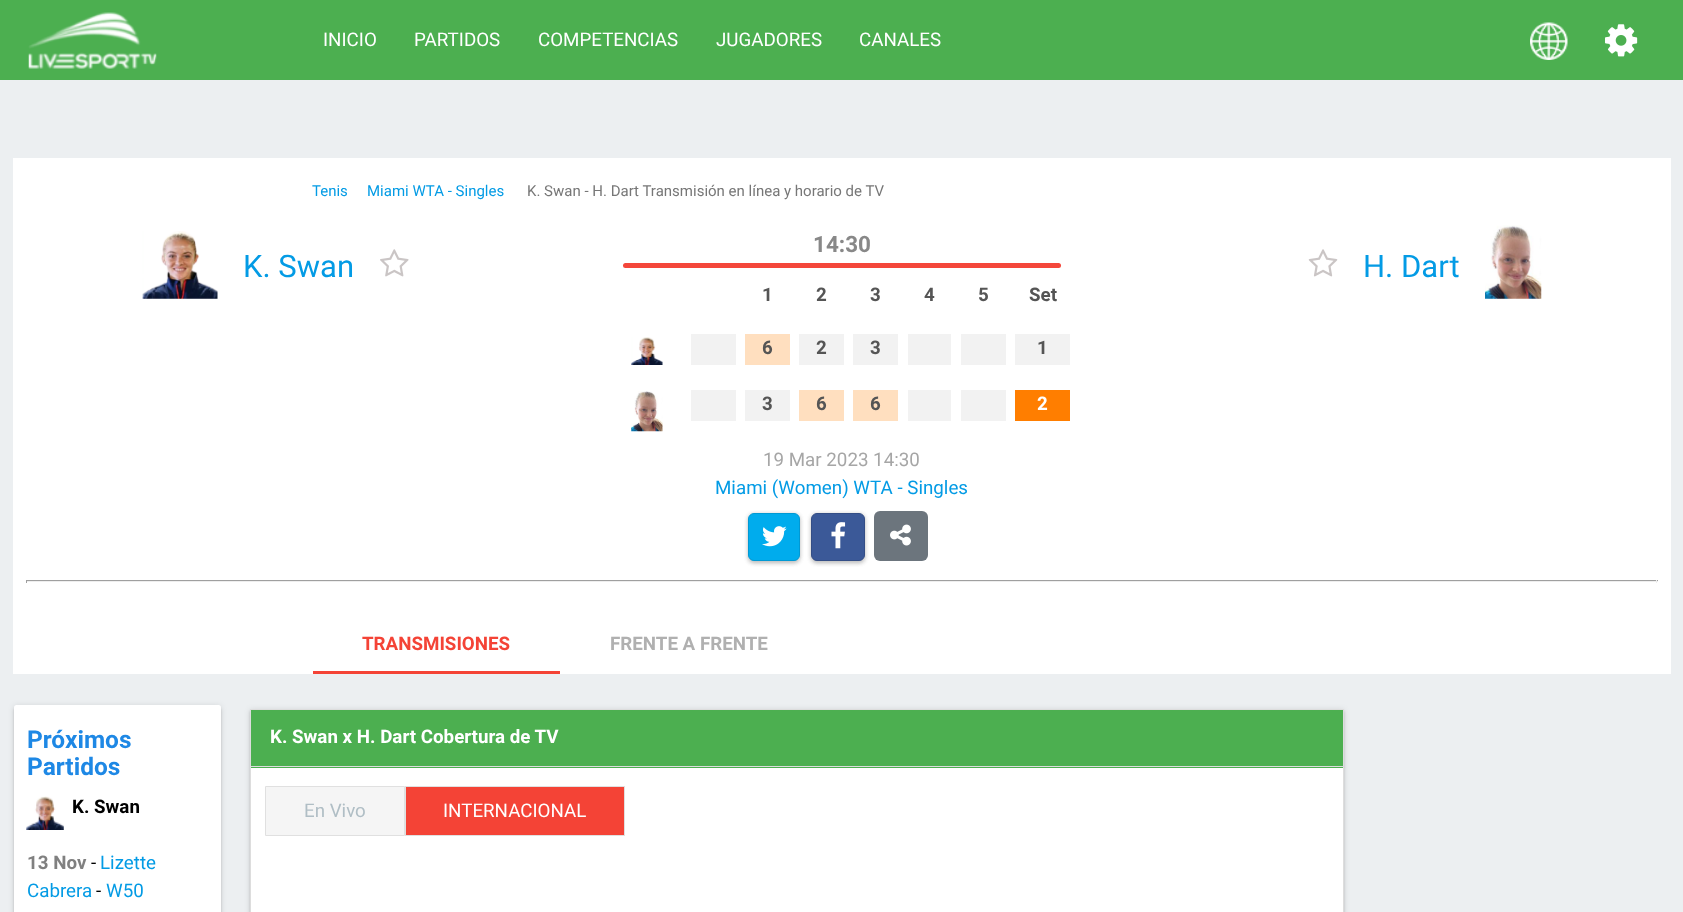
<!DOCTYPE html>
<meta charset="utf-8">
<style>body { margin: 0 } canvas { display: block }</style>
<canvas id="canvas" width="1683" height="912"></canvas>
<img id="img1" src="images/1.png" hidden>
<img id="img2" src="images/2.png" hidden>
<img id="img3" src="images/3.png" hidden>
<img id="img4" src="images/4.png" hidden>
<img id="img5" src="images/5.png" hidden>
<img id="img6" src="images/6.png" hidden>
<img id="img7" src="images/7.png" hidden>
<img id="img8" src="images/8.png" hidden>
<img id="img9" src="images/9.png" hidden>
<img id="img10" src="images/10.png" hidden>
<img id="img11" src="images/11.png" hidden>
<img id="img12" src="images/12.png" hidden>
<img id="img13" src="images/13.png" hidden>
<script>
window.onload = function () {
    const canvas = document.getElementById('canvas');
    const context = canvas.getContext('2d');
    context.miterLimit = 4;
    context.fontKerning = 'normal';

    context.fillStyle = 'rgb(236, 239, 241)';
    context.fillRect(0, 0, 1683, 912);
    context.fillStyle = 'rgb(76, 175, 80)';
    context.fillRect(0, 0, 1683, 80);
    context.drawImage(document.getElementById('img1'), 28, 12, 129, 57);
    context.drawImage(document.getElementById('img2'), 1530, 22, 38, 38);
    context.drawImage(document.getElementById('img3'), 1605, 24, 33, 33);
    context.fillStyle = 'rgb(255, 255, 255)';
    context.fillRect(13, 158, 1658, 516);
    context.drawImage(document.getElementById('img4'), 142, 231, 76, 68);
    context.drawImage(document.getElementById('img5'), 380, 249, 29, 28);
    context.fillStyle = 'rgb(244, 71, 59)';
    context.beginPath();
    context.roundRect(623, 263, 438, 5, 2.5);
    context.fill();
    context.drawImage(document.getElementById('img6'), 631, 337, 32, 28);
    context.fillStyle = 'rgb(242, 242, 242)';
    context.fillRect(691, 334, 45, 31);
    context.fillStyle = 'rgb(255, 223, 191)';
    context.fillRect(745, 334, 45, 31);
    context.fillStyle = 'rgb(242, 242, 242)';
    context.fillRect(799, 334, 45, 31);
    context.fillRect(853, 334, 45, 31);
    context.fillRect(908, 334, 43, 31);
    context.fillRect(961, 334, 45, 31);
    context.fillRect(1015, 334, 55, 31);
    context.drawImage(document.getElementById('img7'), 631, 391, 32, 41);
    context.fillRect(691, 390, 45, 31);
    context.fillRect(745, 390, 45, 31);
    context.fillStyle = 'rgb(255, 223, 191)';
    context.fillRect(799, 390, 45, 31);
    context.fillRect(853, 390, 45, 31);
    context.fillStyle = 'rgb(242, 242, 242)';
    context.fillRect(908, 390, 43, 31);
    context.fillRect(961, 390, 45, 31);
    context.fillStyle = 'rgb(255, 126, 0)';
    context.fillRect(1015, 390, 55, 31);
    context.fillStyle = 'rgba(0, 0, 0, 0.15)';
    context.filter = 'blur(2px)';
    context.beginPath();
    context.roundRect(748, 514, 52, 49, 6);
    context.fill();
    context.filter = 'none';
    context.filter = 'blur(2px)';
    context.beginPath();
    context.roundRect(748, 514, 52, 49, 6);
    context.fill();
    context.filter = 'none';
    context.fillStyle = 'rgb(0, 172, 237)';
    context.beginPath();
    context.roundRect(748.5, 513.5, 51, 47, 5.5);
    context.fill();
    context.strokeStyle = 'rgb(0, 153, 212)';
    context.stroke();
    context.drawImage(document.getElementById('img8'), 762, 526, 25, 21);
    context.fillStyle = 'rgba(0, 0, 0, 0.15)';
    context.filter = 'blur(2px)';
    context.beginPath();
    context.roundRect(811, 514, 54, 49, 6);
    context.fill();
    context.filter = 'none';
    context.filter = 'blur(2px)';
    context.beginPath();
    context.roundRect(811, 514, 54, 49, 6);
    context.fill();
    context.filter = 'none';
    context.fillStyle = 'rgb(59, 89, 152)';
    context.beginPath();
    context.roundRect(811.5, 513.5, 53, 47, 5.5);
    context.fill();
    context.strokeStyle = 'rgb(52, 78, 134)';
    context.stroke();
    context.drawImage(document.getElementById('img9'), 831, 522, 15, 27);
    context.fillStyle = 'rgb(108, 117, 125)';
    context.beginPath();
    context.roundRect(874, 511, 54, 50, 6);
    context.fill();
    context.drawImage(document.getElementById('img10'), 890, 524, 21, 22);
    context.drawImage(document.getElementById('img11'), 1308, 249, 30, 28);
    context.drawImage(document.getElementById('img12'), 1485, 225, 57, 74);
    context.fillStyle = 'rgb(159, 159, 159)';
    context.fillRect(26, 580, 1632, 1);
    context.fillStyle = 'rgb(238, 238, 238)';
    context.fillRect(1656, 580, 1, 3);
    context.fillRect(26, 581, 1632, 1);
    context.fillStyle = 'rgb(159, 159, 159)';
    context.fillRect(26, 580, 1, 3);
    context.fillStyle = 'rgb(244, 67, 54)';
    context.fillRect(313, 671, 247, 3);
    context.fillStyle = 'rgba(0, 0, 0, 0.12)';
    context.filter = 'blur(3px)';
    context.beginPath();
    context.roundRect(14, 706, 207, 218, 2.5);
    context.fill();
    context.filter = 'none';
    context.fillStyle = 'rgba(0, 0, 0, 0.14)';
    context.filter = 'blur(1px)';
    context.beginPath();
    context.roundRect(14, 708, 207, 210, 2.5);
    context.fill();
    context.filter = 'none';
    context.fillStyle = 'rgb(255, 255, 255)';
    context.beginPath();
    context.roundRect(14, 705, 207, 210, 2.5);
    context.fill();
    context.drawImage(document.getElementById('img13'), 26, 796, 38, 34);
    context.fillStyle = 'rgba(0, 0, 0, 0.12)';
    context.filter = 'blur(3px)';
    context.beginPath();
    context.rect(250, 710, 1094, 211);
    context.fill();
    context.filter = 'none';
    context.fillStyle = 'rgba(0, 0, 0, 0.14)';
    context.filter = 'blur(1px)';
    context.beginPath();
    context.rect(250, 711, 1094, 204);
    context.fill();
    context.filter = 'none';
    context.fillStyle = 'rgb(221, 221, 221)';
    context.fillRect(250, 709, 1094, 1);
    context.fillRect(1343, 709, 1, 203);
    context.fillRect(250, 709, 1, 203);
    context.fillStyle = 'rgb(76, 175, 80)';
    context.fillRect(251, 710, 1092, 58);
    context.fillStyle = 'rgb(221, 221, 221)';
    context.fillRect(251, 766, 1092, 1);
    context.fillStyle = 'rgb(255, 255, 255)';
    context.fillRect(251, 768, 1092, 144);
    context.fillStyle = 'rgb(245, 245, 245)';
    context.beginPath();
    context.rect(265.5, 786.5, 139, 49);
    context.fill();
    context.strokeStyle = 'rgb(224, 224, 224)';
    context.stroke();
    context.fillStyle = 'rgb(244, 67, 54)';
    context.beginPath();
    context.rect(405.5, 786.5, 219, 49);
    context.fill();
    context.stroke();
    context.font = '18.75px Roboto';
    context.fillStyle = 'rgb(255, 255, 255)';
    context.fillText('INICIO', 323, 46);
    context.fillText('PARTIDOS', 414, 46);
    context.fillText('COMPETENCIAS', 538, 46);
    context.fillText('JUGADORES', 716, 46);
    context.fillText('CANALES', 859, 46);
    context.font = '15px Roboto';
    context.fillStyle = 'rgb(3, 155, 229)';
    context.fillText('Tenis', 312, 196);
    context.fillText('Miami WTA - Singles', 367, 196);
    context.fillStyle = 'rgb(119, 119, 119)';
    context.fillText('K. Swan - H. Dart Transmisión en línea y horario de TV', 527, 196);
    context.font = '31px Roboto';
    context.fillStyle = 'rgb(3, 155, 229)';
    context.fillText('K. Swan', 243, 277);
    context.font = 'bold 22.5px Roboto';
    context.fillStyle = 'rgb(136, 136, 136)';
    context.fillText('14:30', 813, 252);
    context.font = 'bold 18.75px Roboto';
    context.fillStyle = 'rgb(85, 85, 85)';
    context.fillText('1', 762, 301);
    context.fillText('2', 816, 301);
    context.fillText('3', 870, 301);
    context.fillText('4', 924, 301);
    context.fillText('5', 978, 301);
    context.fillText('Set', 1029, 301);
    context.fillText('6', 762, 354);
    context.fillText('2', 816, 354);
    context.fillText('3', 870, 354);
    context.fillText('1', 1037, 354);
    context.fillText('3', 762, 410);
    context.fillText('6', 816, 410);
    context.fillText('6', 870, 410);
    context.fillStyle = 'rgb(255, 255, 255)';
    context.fillText('2', 1037, 410);
    context.font = '18.75px Roboto';
    context.fillStyle = 'rgb(166, 166, 166)';
    context.fillText('19 Mar 2023 14:30', 763, 466);
    context.fillStyle = 'rgb(3, 155, 229)';
    context.fillText('Miami (Women) WTA - Singles', 715, 494);
    context.font = '31px Roboto';
    context.fillText('H. Dart', 1363, 277);
    context.font = 'bold 18.75px Roboto';
    context.fillStyle = 'rgb(244, 67, 54)';
    context.fillText('TRANSMISIONES', 362, 650);
    context.fillStyle = 'rgb(176, 176, 176)';
    context.fillText('FRENTE A FRENTE', 610, 650);
    context.font = 'bold 24.5px Roboto';
    context.fillStyle = 'rgb(30, 136, 229)';
    context.fillText('Próximos', 27, 748);
    context.fillText('Partidos', 27, 775);
    context.font = 'bold 18.75px Roboto';
    context.fillStyle = 'rgb(0, 0, 0)';
    context.fillText('K. Swan', 72, 813);
    context.fillStyle = 'rgb(128, 128, 128)';
    context.fillText('13 Nov', 27, 869);
    context.font = '18.75px Roboto';
    context.fillStyle = 'rgb(0, 0, 0)';
    context.fillText('-', 91, 869);
    context.fillStyle = 'rgb(3, 155, 229)';
    context.fillText('Lizette', 100, 869);
    context.fillText('Cabrera', 27, 897);
    context.fillStyle = 'rgb(0, 0, 0)';
    context.fillText('-', 96, 897);
    context.fillStyle = 'rgb(3, 155, 229)';
    context.fillText('W50', 106, 897);
    context.font = 'bold 18.75px Roboto';
    context.fillStyle = 'rgb(255, 255, 255)';
    context.fillText('K. Swan x H. Dart Cobertura de TV', 270, 743);
    context.font = '18.75px Roboto';
    context.fillStyle = 'rgb(176, 190, 197)';
    context.fillText('En Vivo', 304, 817);
    context.fillStyle = 'rgb(255, 255, 255)';
    context.fillText('INTERNACIONAL', 443, 817);
};
</script>
